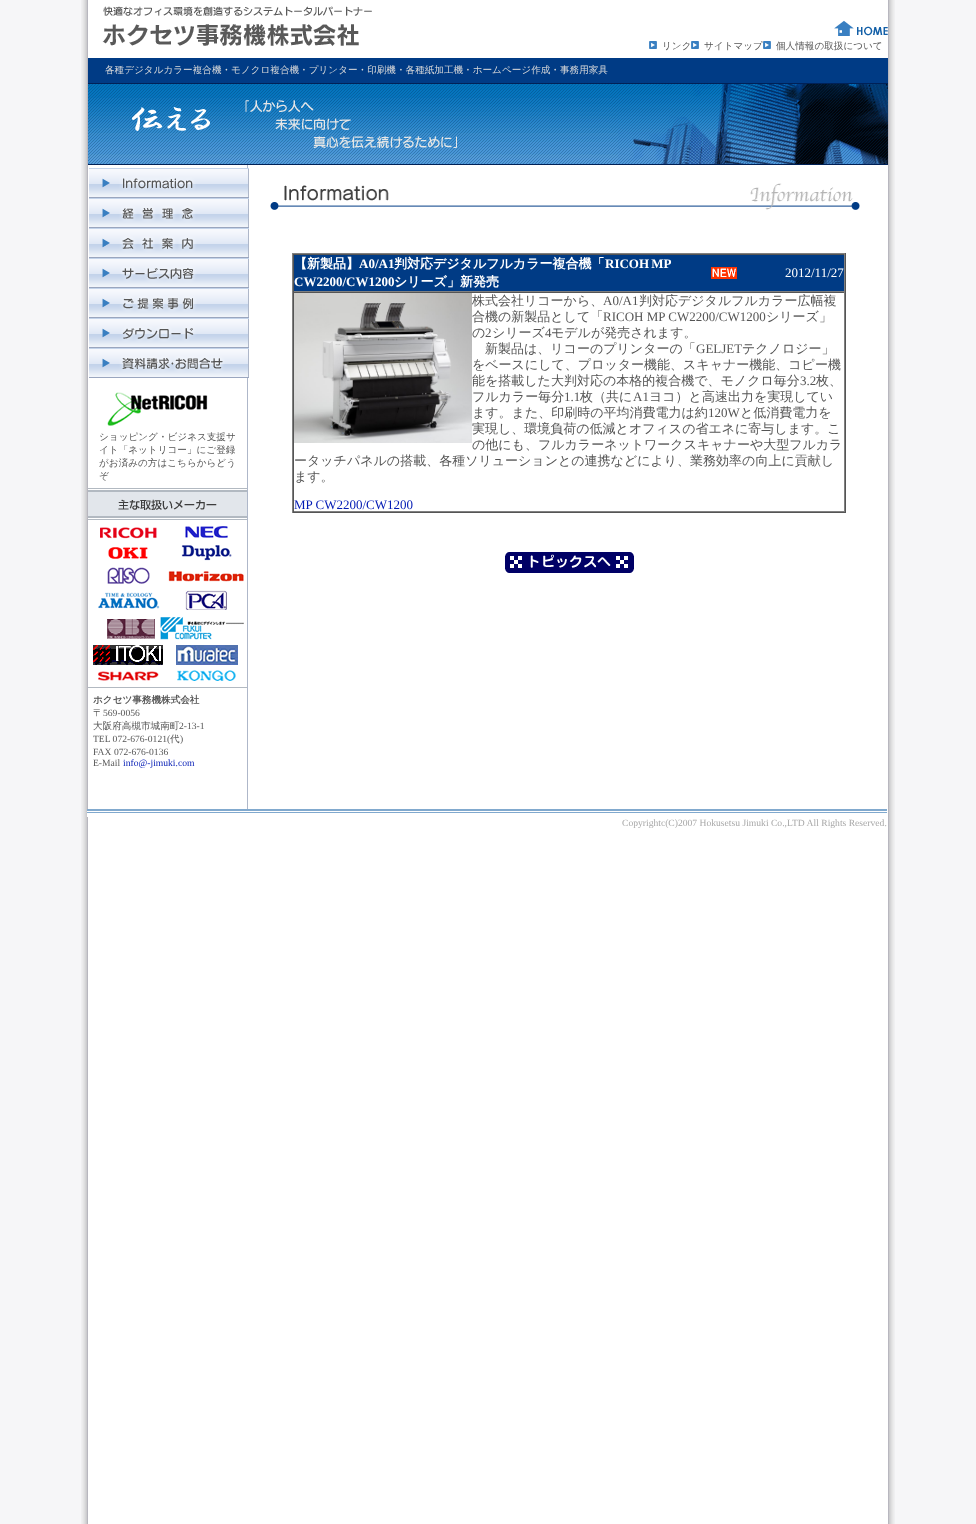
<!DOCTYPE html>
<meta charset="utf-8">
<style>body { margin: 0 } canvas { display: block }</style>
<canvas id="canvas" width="976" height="1524"></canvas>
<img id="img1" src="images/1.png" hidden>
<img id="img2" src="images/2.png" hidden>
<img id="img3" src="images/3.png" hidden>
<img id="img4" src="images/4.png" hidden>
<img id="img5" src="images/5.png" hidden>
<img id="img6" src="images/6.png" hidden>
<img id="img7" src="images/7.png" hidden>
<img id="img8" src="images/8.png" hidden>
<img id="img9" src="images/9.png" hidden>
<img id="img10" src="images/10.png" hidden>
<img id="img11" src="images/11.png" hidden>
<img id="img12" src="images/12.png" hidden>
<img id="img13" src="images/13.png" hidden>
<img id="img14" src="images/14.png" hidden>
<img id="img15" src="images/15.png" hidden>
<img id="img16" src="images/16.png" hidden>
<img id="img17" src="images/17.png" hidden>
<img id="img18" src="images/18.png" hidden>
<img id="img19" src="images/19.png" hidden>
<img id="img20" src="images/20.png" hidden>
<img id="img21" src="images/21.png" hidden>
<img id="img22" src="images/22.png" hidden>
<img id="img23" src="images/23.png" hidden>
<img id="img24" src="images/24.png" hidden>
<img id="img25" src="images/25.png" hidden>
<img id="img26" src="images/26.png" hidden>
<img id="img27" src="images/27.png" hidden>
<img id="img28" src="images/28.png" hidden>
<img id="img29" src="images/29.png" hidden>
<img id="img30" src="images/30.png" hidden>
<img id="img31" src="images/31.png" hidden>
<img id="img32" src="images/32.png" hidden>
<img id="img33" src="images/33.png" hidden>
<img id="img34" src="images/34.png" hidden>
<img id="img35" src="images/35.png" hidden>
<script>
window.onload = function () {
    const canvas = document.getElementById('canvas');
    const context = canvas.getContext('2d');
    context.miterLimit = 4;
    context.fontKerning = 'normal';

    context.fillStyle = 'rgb(246, 246, 248)';
    context.fillRect(0, 0, 976, 1524);
    context.drawImage(document.getElementById('img1'), 81, 0, 814, 1524);
    context.drawImage(document.getElementById('img2'), 103, 6, 269, 10);
    context.drawImage(document.getElementById('img3'), 102, 24, 257, 22);
    context.drawImage(document.getElementById('img4'), 834, 20, 54, 16);
    context.drawImage(document.getElementById('img5'), 649, 41, 8, 8);
    context.drawImage(document.getElementById('img5'), 691, 41, 8, 8);
    context.fillStyle = 'rgb(0, 59, 133)';
    context.fillRect(88, 58, 800, 25);
    context.fillStyle = 'rgb(0, 33, 87)';
    context.fillRect(88, 83, 800, 1);
    context.drawImage(document.getElementById('img6'), 88, 84, 530, 81);
    context.drawImage(document.getElementById('img7'), 618, 84, 270, 81);
    context.drawImage(document.getElementById('img8'), 270, 183, 590, 27);
    context.fillStyle = 'rgb(128, 128, 128)';
    context.fillRect(292, 253, 554, 1);
    context.fillStyle = 'rgb(85, 85, 85)';
    context.fillRect(845, 253, 1, 260);
    context.fillRect(292, 512, 554, 1);
    context.fillStyle = 'rgb(128, 128, 128)';
    context.fillRect(292, 253, 1, 260);
    context.fillStyle = 'rgb(0, 59, 133)';
    context.fillRect(294, 255, 550, 36);
    context.fillStyle = 'rgb(85, 85, 85)';
    context.fillRect(293, 254, 552, 1);
    context.fillStyle = 'rgb(128, 128, 128)';
    context.fillRect(844, 254, 1, 38);
    context.fillRect(293, 291, 552, 1);
    context.fillStyle = 'rgb(85, 85, 85)';
    context.fillRect(293, 254, 1, 38);
    context.drawImage(document.getElementById('img9'), 711, 267, 26, 12);
    context.fillRect(293, 292, 552, 1);
    context.fillStyle = 'rgb(128, 128, 128)';
    context.fillRect(844, 292, 1, 220);
    context.fillRect(293, 511, 552, 1);
    context.fillStyle = 'rgb(85, 85, 85)';
    context.fillRect(293, 292, 1, 220);
    context.drawImage(document.getElementById('img10'), 294, 293, 178, 150);
    context.drawImage(document.getElementById('img11'), 505, 552, 129, 21);
    context.fillStyle = 'rgb(174, 183, 201)';
    context.fillRect(247, 165, 1, 644);
    context.drawImage(document.getElementById('img12'), 89, 168, 160, 30);
    context.drawImage(document.getElementById('img13'), 89, 198, 160, 30);
    context.drawImage(document.getElementById('img14'), 89, 228, 160, 30);
    context.drawImage(document.getElementById('img15'), 89, 258, 160, 30);
    context.drawImage(document.getElementById('img16'), 89, 288, 160, 30);
    context.drawImage(document.getElementById('img17'), 89, 318, 160, 30);
    context.drawImage(document.getElementById('img18'), 89, 348, 160, 30);
    context.drawImage(document.getElementById('img19'), 107, 392, 101, 34);
    context.drawImage(document.getElementById('img20'), 88, 488, 159, 32);
    context.drawImage(document.getElementById('img21'), 100, 527, 57, 12);
    context.drawImage(document.getElementById('img22'), 185, 526, 43, 12);
    context.drawImage(document.getElementById('img23'), 108, 547, 40, 12);
    context.drawImage(document.getElementById('img24'), 181, 545, 51, 16);
    context.drawImage(document.getElementById('img25'), 107, 567, 43, 17);
    context.drawImage(document.getElementById('img26'), 168, 571, 76, 11);
    context.drawImage(document.getElementById('img27'), 98, 592, 62, 17);
    context.drawImage(document.getElementById('img28'), 185, 590, 42, 20);
    context.drawImage(document.getElementById('img29'), 107, 619, 48, 20);
    context.drawImage(document.getElementById('img30'), 160, 617, 84, 23);
    context.drawImage(document.getElementById('img31'), 93, 645, 70, 20);
    context.drawImage(document.getElementById('img32'), 176, 645, 62, 20);
    context.drawImage(document.getElementById('img33'), 98, 671, 61, 10);
    context.drawImage(document.getElementById('img34'), 177, 670, 59, 11);
    context.fillStyle = 'rgb(178, 185, 193)';
    context.fillRect(88, 687, 159, 1);
    context.drawImage(document.getElementById('img35'), 87, 809, 800, 8);
    context.font = '500 9.6px WenQuanYi Zen Hei';
    context.fillStyle = 'rgb(85, 85, 85)';
    context.fillText('リンク', 662, 49);
    context.fillText('サイトマップ', 704, 49);
    context.drawImage(document.getElementById('img5'), 763, 41, 8, 8);
    context.fillText('個人情報の取扱について', 776, 49);
    context.fillStyle = 'rgb(218, 218, 218)';
    context.fillText('各種デジタルカラー複合機・モノクロ複合機・プリンター・印刷機・各種紙加工機・ホームページ作成・事務用家具', 105, 73);
    context.font = 'bold 13px WenQuanYi Zen Hei';
    context.fillStyle = 'rgb(255, 255, 255)';
    context.fillText('【新製品】', 294, 268);
    context.font = 'bold 13px Liberation Serif';
    context.fillText('A0/A1', 359, 268);
    context.font = 'bold 13px WenQuanYi Zen Hei';
    context.fillText('判対応デジタルフルカラー複合機「', 394, 268);
    context.wordSpacing = '-1px';
    context.font = 'bold 13px Liberation Serif';
    context.fillText('RICOH MP', 605, 268);
    context.wordSpacing = '0px';
    context.fillText('CW2200/CW1200', 294, 286);
    context.font = 'bold 13px WenQuanYi Zen Hei';
    context.fillText('シリーズ」新発売', 394, 286);
    context.font = '13px Liberation Serif';
    context.fillText('2012/11/27', 785, 277);
    context.font = '500 13px WenQuanYi Zen Hei';
    context.fillStyle = 'rgb(85, 85, 85)';
    context.fillText('株式会社リコーから、', 472, 305);
    context.font = '13px Liberation Serif';
    context.fillText('A0/A1', 603, 305);
    context.font = '500 13px WenQuanYi Zen Hei';
    context.fillText('判対応デジタルフルカラー広幅複', 639, 305);
    context.fillText('合機の新製品として「', 472, 321);
    context.font = '13px Liberation Serif';
    context.fillText('RICOH MP CW2200/CW1200', 603, 321);
    context.font = '500 13px WenQuanYi Zen Hei';
    context.fillText('シリーズ」', 766, 321);
    context.fillText('の', 472, 337);
    context.font = '13px Liberation Serif';
    context.fillText('2', 485, 337);
    context.font = '500 13px WenQuanYi Zen Hei';
    context.fillText('シリーズ', 492, 337);
    context.font = '13px Liberation Serif';
    context.fillText('4', 545, 337);
    context.font = '500 13px WenQuanYi Zen Hei';
    context.fillText('モデルが発売されます。', 551, 337);
    context.fillText('新製品は、リコーのプリンターの「', 485, 353);
    context.font = '13px Liberation Serif';
    context.fillText('GELJET', 696, 353);
    context.font = '500 13px WenQuanYi Zen Hei';
    context.fillText('テクノロジー」', 742, 353);
    context.fillText('をベースにして、プロッター機能、スキャナー機能、コピー機', 472, 369);
    context.fillText('能を搭載した大判対応の本格的複合機で、モノクロ毎分', 472, 385);
    context.font = '13px Liberation Serif';
    context.fillText('3.2', 800, 385);
    context.font = '500 13px WenQuanYi Zen Hei';
    context.fillText('枚、', 816, 385);
    context.fillText('フルカラー毎分', 472, 401);
    context.font = '13px Liberation Serif';
    context.fillText('1.1', 564, 401);
    context.font = '500 13px WenQuanYi Zen Hei';
    context.fillText('枚（共に', 580, 401);
    context.font = '13px Liberation Serif';
    context.fillText('A1', 633, 401);
    context.font = '500 13px WenQuanYi Zen Hei';
    context.fillText('ヨコ）と高速出力を実現してい', 649, 401);
    context.fillText('ます。また、印刷時の平均消費電力は約', 472, 417);
    context.font = '13px Liberation Serif';
    context.fillText('120W', 708, 417);
    context.font = '500 13px WenQuanYi Zen Hei';
    context.fillText('と低消費電力を', 740, 417);
    context.fillText('実現し、環境負荷の低減とオフィスの省エネに寄与します。こ', 472, 433);
    context.fillText('の他にも、フルカラーネットワークスキャナーや大型フルカラ', 472, 449);
    context.fillText('ータッチパネルの搭載、各種ソリューションとの連携などにより、業務効率の向上に貢献し', 294, 465);
    context.fillText('ます。', 294, 481);
    context.font = '13px Liberation Serif';
    context.fillStyle = 'rgb(0, 25, 180)';
    context.fillText('MP CW2200/CW1200', 294, 509);
    context.font = '500 9.6px WenQuanYi Zen Hei';
    context.fillStyle = 'rgb(85, 85, 85)';
    context.fillText('ショッピング・ビジネス支援サ', 99, 440);
    context.fillText('イト「ネットリコー」にご登録', 99, 453);
    context.fillText('がお済みの方はこちらからどう', 99, 466);
    context.fillText('ぞ', 99, 479);
    context.font = 'bold 9.6px WenQuanYi Zen Hei';
    context.fillText('ホクセツ事務機株式会社', 93, 703);
    context.font = '500 9.6px WenQuanYi Zen Hei';
    context.fillText('〒', 93, 716);
    context.font = '9.6px Liberation Serif';
    context.fillText('569-0056', 103, 716);
    context.font = '500 9.6px WenQuanYi Zen Hei';
    context.fillText('大阪府高槻市城南町', 93, 729);
    context.font = '9.6px Liberation Serif';
    context.fillText('2-13-1', 179, 729);
    context.fillText('TEL 072-676-0121(', 93, 742);
    context.font = '500 9.6px WenQuanYi Zen Hei';
    context.fillText('代', 170, 742);
    context.font = '9.6px Liberation Serif';
    context.fillText(')', 180, 742);
    context.fillText('FAX 072-676-0136', 93, 755);
    context.fillText('E-Mail', 93, 766);
    context.fillStyle = 'rgb(0, 25, 180)';
    context.fillText('info@-jimuki.com', 123, 766);
    context.fillStyle = 'rgb(167, 167, 167)';
    context.fillText('Copyrightc(C)2007 Hokusetsu Jimuki Co.,LTD All Rights Reserved.', 622, 826);
};
</script>
